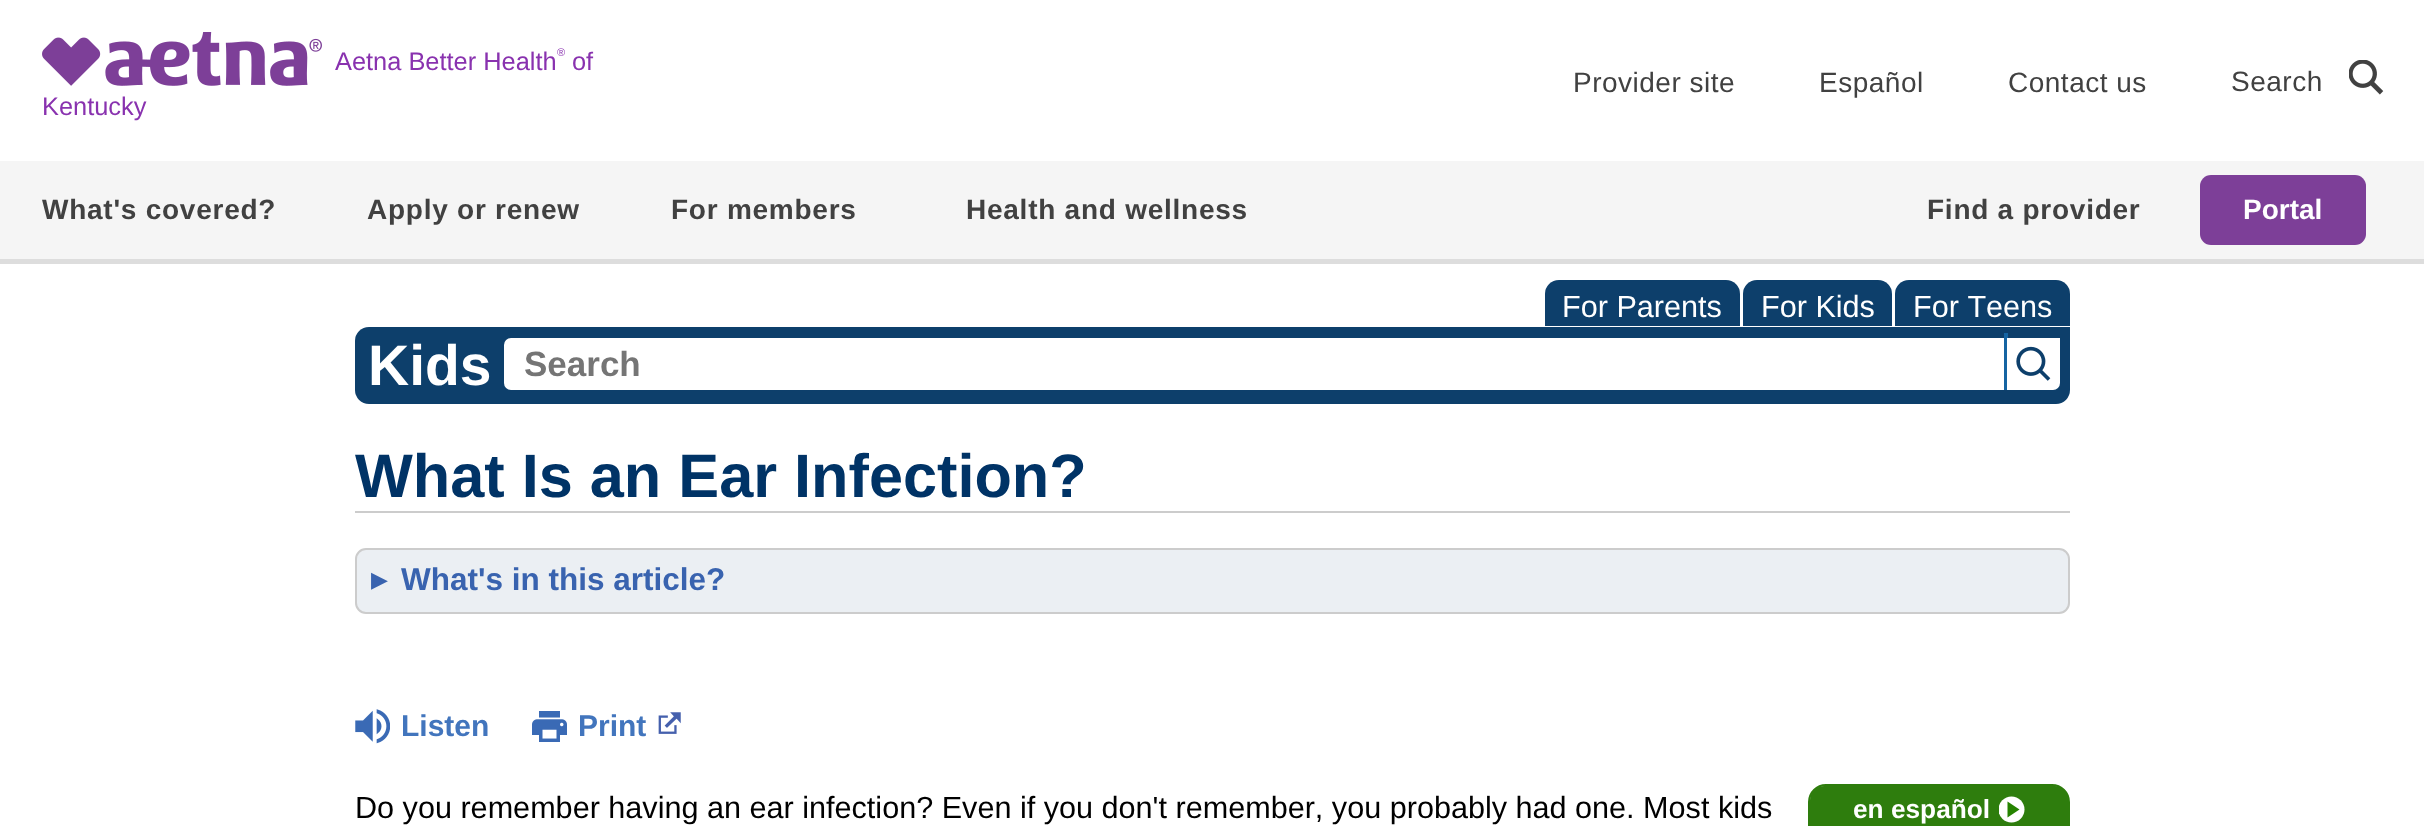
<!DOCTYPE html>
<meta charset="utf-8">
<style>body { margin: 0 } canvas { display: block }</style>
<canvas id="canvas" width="2424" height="826"></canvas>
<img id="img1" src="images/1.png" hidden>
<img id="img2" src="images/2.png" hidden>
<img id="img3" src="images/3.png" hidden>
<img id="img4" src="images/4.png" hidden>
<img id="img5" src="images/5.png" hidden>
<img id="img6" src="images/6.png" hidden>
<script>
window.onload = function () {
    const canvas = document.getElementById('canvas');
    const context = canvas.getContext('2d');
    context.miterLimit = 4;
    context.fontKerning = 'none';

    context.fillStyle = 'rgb(255, 255, 255)';
    context.fillRect(0, 0, 2424, 826);
    context.drawImage(document.getElementById('img1'), 42, 32, 280, 54);
    context.drawImage(document.getElementById('img2'), 2349, 60, 35, 35);
    context.fillStyle = 'rgb(245, 245, 245)';
    context.fillRect(0, 161, 2424, 98);
    context.fillStyle = 'rgb(221, 221, 221)';
    context.fillRect(0, 259, 2424, 5);
    context.fillStyle = 'rgb(125, 63, 152)';
    context.beginPath();
    context.roundRect(2200, 175, 166, 70, 11);
    context.fill();
    context.fillStyle = 'rgb(13, 63, 107)';
    context.beginPath();
    context.roundRect(1545, 280, 195, 46, [14, 14, 0, 0]);
    context.fill();
    context.beginPath();
    context.roundRect(1743, 280, 149, 46, [14, 14, 0, 0]);
    context.fill();
    context.beginPath();
    context.roundRect(1895, 280, 175, 46, [14, 14, 0, 0]);
    context.fill();
    context.beginPath();
    context.roundRect(355, 327, 1715, 77, [14, 0, 14, 14]);
    context.fill();
    context.fillStyle = 'rgb(255, 255, 255)';
    context.beginPath();
    context.roundRect(509.5, 343.5, 1489, 41, [1.5, 0, 0, 1.5]);
    context.fill();
    context.strokeStyle = 'rgb(255, 255, 255)';
    context.lineWidth = 11;
    context.stroke();
    context.fillStyle = 'rgb(21, 100, 162)';
    context.fillRect(2004, 333, 4, 57);
    context.fillStyle = 'rgb(255, 255, 255)';
    context.beginPath();
    context.roundRect(2007, 338, 53, 52, [0, 0, 7, 0]);
    context.fill();
    context.drawImage(document.getElementById('img3'), 2016, 346, 35, 35);
    context.fillStyle = 'rgb(204, 204, 204)';
    context.fillRect(355, 511, 1715, 2);
    context.fillStyle = 'rgb(235, 239, 243)';
    context.beginPath();
    context.roundRect(356, 549, 1713, 64, 10);
    context.fill();
    context.strokeStyle = 'rgb(204, 204, 204)';
    context.lineWidth = 2;
    context.stroke();
    context.drawImage(document.getElementById('img4'), 355, 709, 35, 35);
    context.drawImage(document.getElementById('img5'), 532, 711, 35, 31);
    context.drawImage(document.getElementById('img6'), 658, 712, 23, 22);
    context.beginPath();
    context.roundRect(1809, 785, 260, 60, 17);
    context.strokeStyle = 'rgb(46, 125, 13)';
    context.stroke();
    context.fillStyle = 'rgb(46, 125, 13)';
    context.beginPath();
    context.moveTo(1824, 786);
    context.lineTo(2055, 786);
    context.bezierCurveTo(2062.5, 786, 2069, 792.5, 2069, 800);
    context.lineTo(2069, 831);
    context.lineTo(1810, 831);
    context.lineTo(1810, 800);
    context.bezierCurveTo(1810, 792.5, 1816.5, 786, 1824, 786);
    context.closePath();
    context.fill();
    context.save();
    context.beginPath();
    context.rect(1999, 796, 26, 27);
    context.clip();
    context.fillStyle = 'rgb(255, 255, 255)';
    context.beginPath();
    context.arc(2011.5, 809.5, 13, 0, 2 * Math.PI);
    context.fill();
    context.restore();
    context.fillStyle = 'rgb(37, 131, 0)';
    context.beginPath();
    context.moveTo(2007.5, 801.5);
    context.lineTo(2007.5, 817.5);
    context.lineTo(2019.5, 809.5);
    context.closePath();
    context.fill('evenodd');
    context.font = '25.4px Liberation Sans';
    context.fillStyle = 'rgb(137, 50, 175)';
    context.fillText('Aetna Better Health', 335, 70);
    context.font = '11px Liberation Sans';
    context.fillText('®', 557, 56);
    context.font = '25.4px Liberation Sans';
    context.fillText('of', 572, 70);
    context.fillText('Kentucky', 42, 115);
    context.letterSpacing = '0.5px';
    context.font = '28px Liberation Sans';
    context.fillStyle = 'rgb(65, 65, 65)';
    context.fillText('Provider site', 1573, 92);
    context.fillText('Español', 1819, 92);
    context.fillText('Contact us', 2008, 92);
    context.fillText('Search', 2231, 91);
    context.letterSpacing = '0.75px';
    context.font = 'bold 28px Liberation Sans';
    context.fillText('What\'s covered?', 42, 219);
    context.fillText('Apply or renew', 367, 219);
    context.fillText('For members', 671, 219);
    context.fillText('Health and wellness', 966, 219);
    context.fillText('Find a provider', 1927, 219);
    context.letterSpacing = '0px';
    context.fillStyle = 'rgb(255, 255, 255)';
    context.fillText('Portal', 2243, 219);
    context.font = '30.6px Liberation Sans';
    context.fillText('For Parents', 1562, 317);
    context.fillText('For Kids', 1761, 317);
    context.fillText('For Teens', 1913, 317);
    context.font = 'bold 57px Liberation Sans';
    context.fillText('Kids', 368, 385);
    context.font = 'bold 35px Liberation Sans';
    context.fillStyle = 'rgb(117, 117, 117)';
    context.fillText('Search', 524, 376);
    context.font = 'bold 61.25px Liberation Sans';
    context.fillStyle = 'rgb(0, 51, 102)';
    context.fillText('What Is an Ear Infection?', 355, 497);
    context.font = '22px DejaVu Sans';
    context.fillStyle = 'rgb(57, 99, 175)';
    context.fillText('▶︎', 371, 587);
    context.font = 'bold 31.5px Liberation Sans';
    context.fillText('What\'s in this article?', 401, 590);
    context.font = 'bold 30px Liberation Sans';
    context.fillStyle = 'rgb(66, 117, 189)';
    context.fillText('Listen', 401, 736);
    context.fillText('Print', 578, 736);
    context.font = '30.6px Liberation Sans';
    context.fillStyle = 'rgb(0, 0, 0)';
    context.fillText('Do you remember having an ear infection? Even if you don\'t remember, you probably had one. Most kids', 355, 818);
    context.font = 'bold 26.25px Liberation Sans';
    context.fillStyle = 'rgb(255, 255, 255)';
    context.fillText('en español', 1853, 818);
};
</script>
